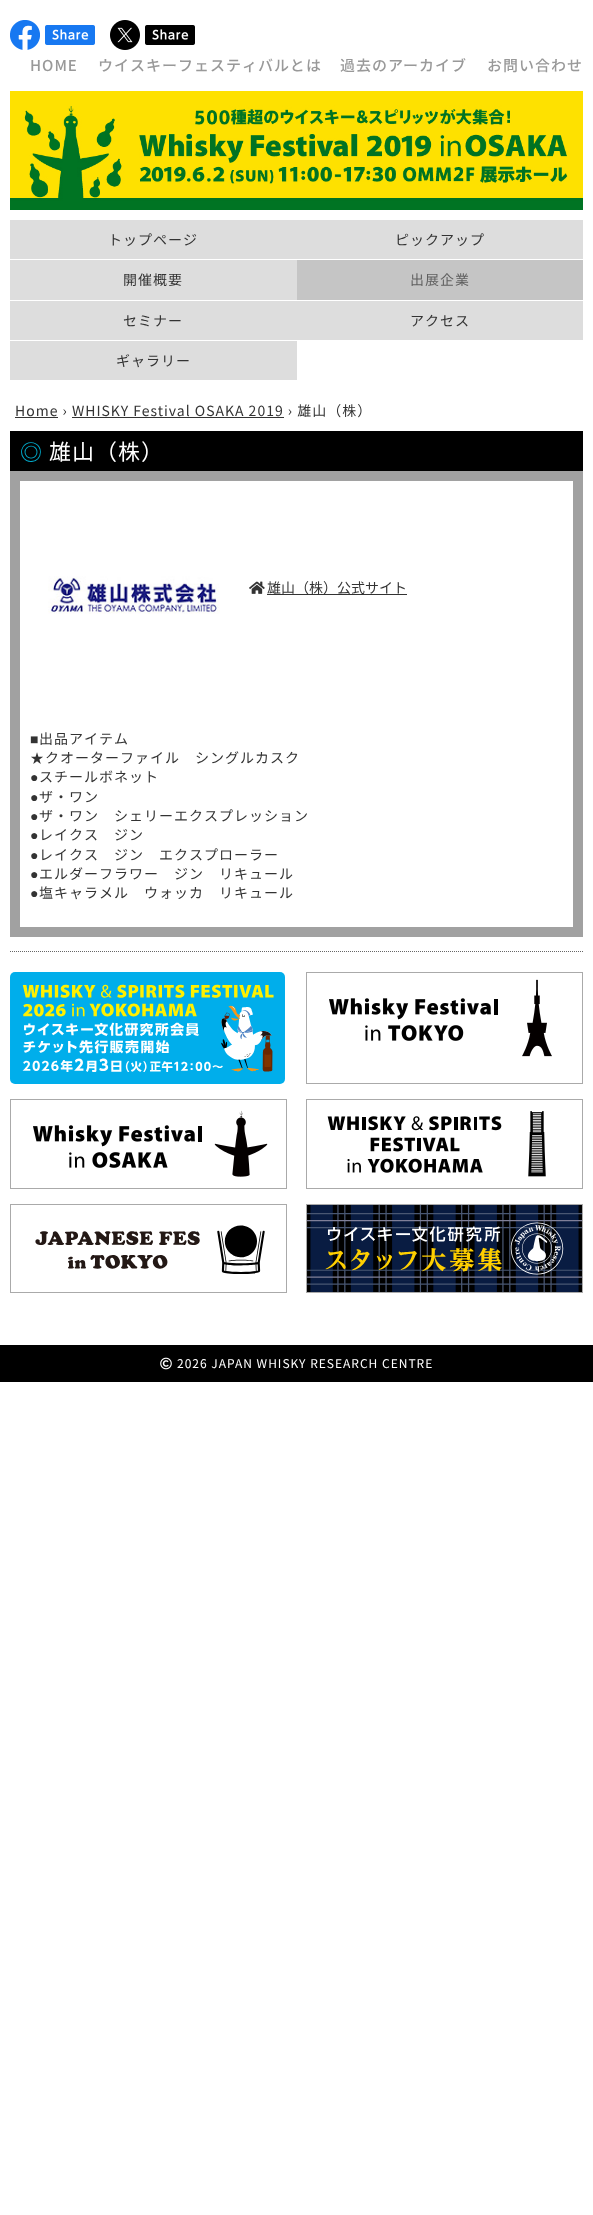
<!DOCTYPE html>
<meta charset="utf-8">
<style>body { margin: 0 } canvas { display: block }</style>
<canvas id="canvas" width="593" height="2215"></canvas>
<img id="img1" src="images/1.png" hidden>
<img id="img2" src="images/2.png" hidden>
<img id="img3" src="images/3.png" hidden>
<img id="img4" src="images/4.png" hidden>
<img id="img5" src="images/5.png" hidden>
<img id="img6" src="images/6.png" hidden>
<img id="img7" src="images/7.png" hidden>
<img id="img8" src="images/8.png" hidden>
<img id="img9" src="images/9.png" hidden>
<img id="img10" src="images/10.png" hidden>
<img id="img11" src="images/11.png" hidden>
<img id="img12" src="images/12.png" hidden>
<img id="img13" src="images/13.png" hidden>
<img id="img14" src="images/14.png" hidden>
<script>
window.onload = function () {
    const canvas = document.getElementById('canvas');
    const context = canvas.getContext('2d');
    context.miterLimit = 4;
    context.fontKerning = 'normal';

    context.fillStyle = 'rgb(255, 255, 255)';
    context.fillRect(0, 0, 593, 2215);
    context.drawImage(document.getElementById('img1'), 10, 20, 30, 30);
    context.drawImage(document.getElementById('img2'), 45, 25, 50, 20);
    context.drawImage(document.getElementById('img3'), 110, 20, 30, 30);
    context.drawImage(document.getElementById('img4'), 145, 25, 50, 20);
    context.drawImage(document.getElementById('img5'), 10, 91, 573, 119);
    context.fillStyle = 'rgb(221, 221, 221)';
    context.fillRect(10, 220, 573, 39);
    context.fillRect(10, 260, 287, 40);
    context.fillStyle = 'rgb(197, 197, 197)';
    context.fillRect(297, 260, 286, 40);
    context.fillStyle = 'rgb(221, 221, 221)';
    context.fillRect(10, 301, 573, 39);
    context.fillRect(10, 341, 287, 39);
    context.fillStyle = 'rgb(51, 51, 51)';
    context.fillRect(15, 417, 43, 1);
    context.fillRect(72, 417, 212, 1);
    context.fillStyle = 'rgb(0, 0, 0)';
    context.fillRect(10, 431, 573, 40);
    context.fillStyle = 'rgb(161, 161, 161)';
    context.fillRect(10, 927, 573, 10);
    context.fillRect(20, 471, 553, 10);
    context.fillRect(573, 471, 10, 456);
    context.fillRect(10, 471, 10, 456);
    context.drawImage(document.getElementById('img6'), 48, 576, 172, 38);
    context.drawImage(document.getElementById('img7'), 249, 581, 16, 13);
    context.fillStyle = 'rgb(51, 51, 51)';
    context.fillRect(267, 594, 140, 1);
    context.beginPath();
    context.moveTo(10, 951.5);
    context.lineTo(583, 951.5);
    context.strokeStyle = 'rgb(102, 102, 102)';
    context.setLineDash([1, 1]);
    context.stroke();
    context.drawImage(document.getElementById('img8'), 10, 972, 275, 112);
    context.strokeStyle = 'rgb(170, 170, 170)';
    context.setLineDash([]);
    context.strokeRect(306.5, 972.5, 276, 111);
    context.drawImage(document.getElementById('img9'), 329, 979, 223, 78);
    context.strokeRect(10.5, 1099.5, 276, 89);
    context.drawImage(document.getElementById('img10'), 33, 1110, 235, 67);
    context.strokeRect(306.5, 1099.5, 276, 89);
    context.drawImage(document.getElementById('img11'), 327, 1111, 219, 66);
    context.strokeRect(10.5, 1204.5, 276, 88);
    context.drawImage(document.getElementById('img12'), 35, 1225, 230, 49);
    context.strokeRect(306.5, 1204.5, 276, 88);
    context.drawImage(document.getElementById('img13'), 307, 1205, 275, 87);
    context.fillStyle = 'rgb(0, 0, 0)';
    context.fillRect(0, 1345, 593, 37);
    context.drawImage(document.getElementById('img14'), 160, 1357, 12, 13);
    context.letterSpacing = '1px';
    context.font = '500 15px Noto Sans JP';
    context.fillStyle = 'rgb(153, 153, 153)';
    context.fillText('HOME', 30, 71);
    context.fillText('ウイスキーフェスティバルとは', 98, 71);
    context.fillText('過去のアーカイブ', 340, 71);
    context.fillText('お問い合わせ', 487, 71);
    context.font = '14px Noto Sans JP';
    context.fillStyle = 'rgb(51, 51, 51)';
    context.fillText('トップページ', 108, 245);
    context.fillText('ピックアップ', 395, 245);
    context.fillText('開催概要', 123, 285);
    context.fillStyle = 'rgb(95, 95, 95)';
    context.fillText('出展企業', 410, 285);
    context.fillStyle = 'rgb(51, 51, 51)';
    context.fillText('セミナー', 123, 326);
    context.fillText('アクセス', 410, 326);
    context.fillText('ギャラリー', 116, 366);
    context.fillText('Home › WHISKY Festival OSAKA 2019 › 雄山（株）', 15, 416);
    context.font = '500 22px WenQuanYi Zen Hei';
    context.fillStyle = 'rgb(0, 168, 200)';
    context.fillText('◎', 20, 460);
    context.font = '22px Noto Sans JP';
    context.fillStyle = 'rgb(255, 255, 255)';
    context.fillText('雄山（株）', 49, 460);
    context.letterSpacing = '0px';
    context.font = '14px Noto Sans JP';
    context.fillStyle = 'rgb(51, 51, 51)';
    context.fillText('雄山（株）公式サイト', 267, 593);
    context.letterSpacing = '1px';
    context.font = '14px Liberation Sans';
    context.fillText('■', 30, 744);
    context.font = '14px Noto Sans JP';
    context.fillText('出品アイテム', 39, 744);
    context.font = '500 14px WenQuanYi Zen Hei';
    context.fillText('★', 30, 763);
    context.font = '14px Noto Sans JP';
    context.fillText('クオーターファイル　シングルカスク', 45, 763);
    context.font = '14px Liberation Sans';
    context.fillText('●', 30, 782);
    context.font = '14px Noto Sans JP';
    context.fillText('スチールボネット', 39, 782);
    context.font = '14px Liberation Sans';
    context.fillText('●', 30, 802);
    context.font = '14px Noto Sans JP';
    context.fillText('ザ・ワン', 39, 802);
    context.font = '14px Liberation Sans';
    context.fillText('●', 30, 821);
    context.font = '14px Noto Sans JP';
    context.fillText('ザ・ワン　シェリーエクスプレッション', 39, 821);
    context.font = '14px Liberation Sans';
    context.fillText('●', 30, 840);
    context.font = '14px Noto Sans JP';
    context.fillText('レイクス　ジン', 39, 840);
    context.font = '14px Liberation Sans';
    context.fillText('●', 30, 860);
    context.font = '14px Noto Sans JP';
    context.fillText('レイクス　ジン　エクスプローラー', 39, 860);
    context.font = '14px Liberation Sans';
    context.fillText('●', 30, 879);
    context.font = '14px Noto Sans JP';
    context.fillText('エルダーフラワー　ジン　リキュール', 39, 879);
    context.font = '14px Liberation Sans';
    context.fillText('●', 30, 898);
    context.font = '14px Noto Sans JP';
    context.fillText('塩キャラメル　ウォッカ　リキュール', 39, 898);
    context.font = '12px Noto Sans JP';
    context.fillStyle = 'rgb(255, 255, 255)';
    context.fillText('2026 JAPAN WHISKY RESEARCH CENTRE', 177, 1368);
};
</script>
